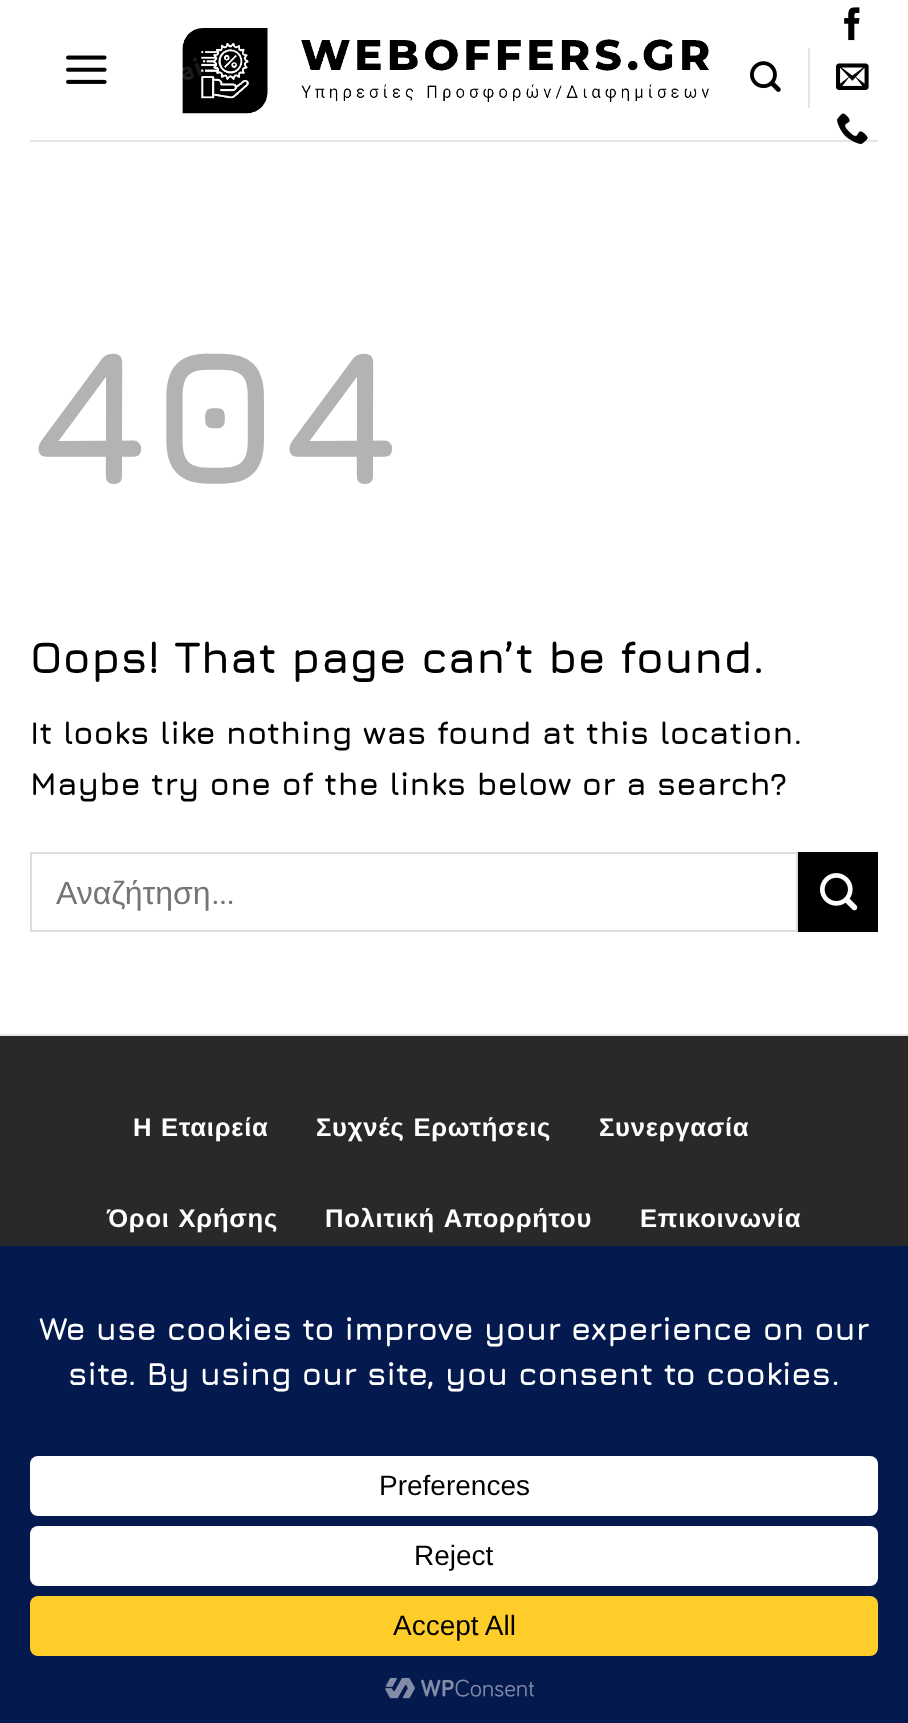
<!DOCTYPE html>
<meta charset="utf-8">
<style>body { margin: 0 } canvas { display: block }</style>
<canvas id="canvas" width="908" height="1723"></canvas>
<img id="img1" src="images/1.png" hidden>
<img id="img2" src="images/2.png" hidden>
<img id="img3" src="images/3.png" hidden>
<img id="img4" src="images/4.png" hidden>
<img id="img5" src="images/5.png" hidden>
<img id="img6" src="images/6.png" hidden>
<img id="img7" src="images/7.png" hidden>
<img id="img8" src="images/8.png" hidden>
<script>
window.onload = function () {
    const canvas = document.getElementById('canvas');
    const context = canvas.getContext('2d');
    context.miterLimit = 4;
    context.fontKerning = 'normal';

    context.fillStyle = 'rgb(255, 255, 255)';
    context.fillRect(0, 0, 908, 1723);
    context.drawImage(document.getElementById('img1'), 66, 55, 41, 29);
    context.drawImage(document.getElementById('img2'), 182, 28, 527, 86);
    context.drawImage(document.getElementById('img3'), 750, 61, 31, 31);
    context.fillStyle = 'rgb(230, 230, 230)';
    context.fillRect(808, 48, 2, 60);
    context.drawImage(document.getElementById('img4'), 844, 7, 16, 34);
    context.drawImage(document.getElementById('img5'), 836, 63, 33, 27);
    context.drawImage(document.getElementById('img6'), 837, 113, 31, 31);
    context.fillStyle = 'rgba(0, 0, 0, 0.1)';
    context.fillRect(30, 140, 848, 2);
    context.strokeStyle = 'rgb(221, 221, 221)';
    context.lineWidth = 2;
    context.strokeRect(31, 853, 766, 78);
    context.fillStyle = 'rgb(0, 0, 0)';
    context.fillRect(798, 852, 80, 80);
    context.drawImage(document.getElementById('img7'), 820, 873, 38, 38);
    context.fillStyle = 'rgb(230, 230, 230)';
    context.fillRect(0, 1034, 908, 2);
    context.fillStyle = 'rgb(41, 41, 41)';
    context.fillRect(0, 1036, 908, 210);
    context.fillStyle = 'rgb(4, 25, 78)';
    context.fillRect(0, 1246, 908, 477);
    context.fillStyle = 'rgb(255, 255, 255)';
    context.beginPath();
    context.roundRect(30, 1456, 848, 60, 8);
    context.fill();
    context.beginPath();
    context.roundRect(30, 1526, 848, 60, 8);
    context.fill();
    context.fillStyle = 'rgb(255, 205, 42)';
    context.beginPath();
    context.roundRect(30, 1596, 848, 60, 8);
    context.fill();
    context.drawImage(document.getElementById('img8'), 385, 1677, 149, 22);
    context.font = 'bold 192px Jura';
    context.fillStyle = 'rgb(179, 179, 179)';
    context.fillText('404', 30, 484);
    context.font = 'bold 44.75px Jura';
    context.fillStyle = 'rgb(0, 0, 0)';
    context.fillText('Oops! That page can’t be found.', 30, 673);
    context.font = 'bold 32px Jura';
    context.fillText('It looks like nothing was found at this location.', 30, 744);
    context.fillText('Maybe try one of the links below or a search?', 30, 795);
    context.font = '32px Liberation Sans';
    context.fillStyle = 'rgb(117, 117, 117)';
    context.fillText('Αναζήτηση', 56, 904);
    context.font = 'bold 32px Jura';
    context.fillText('…', 211, 904);
    context.letterSpacing = '0.75px';
    context.wordSpacing = '1px';
    context.font = 'bold 25.6px Liberation Sans';
    context.fillStyle = 'rgb(255, 255, 255)';
    context.fillText('Η Εταιρεία', 133, 1136);
    context.fillText('Συχνές Ερωτήσεις', 316, 1136);
    context.wordSpacing = '0px';
    context.fillText('Συνεργασία', 599, 1136);
    context.wordSpacing = '1px';
    context.fillText('Όροι Χρήσης', 107, 1227);
    context.wordSpacing = '2px';
    context.fillText('Πολιτική Απορρήτου', 325, 1227);
    context.wordSpacing = '0px';
    context.fillText('Επικοινωνία', 640, 1227);
    context.letterSpacing = '0px';
    context.font = 'bold 32px Jura';
    context.fillText('We use cookies to improve your experience on our', 39, 1340);
    context.fillText('site. By using our site, you consent to cookies.', 68, 1385);
    context.font = '28px Liberation Sans';
    context.fillStyle = 'rgb(0, 0, 0)';
    context.fillText('Preferences', 379, 1495);
    context.fillText('Reject', 414, 1565);
    context.fillText('Accept All', 393, 1635);
};
</script>
